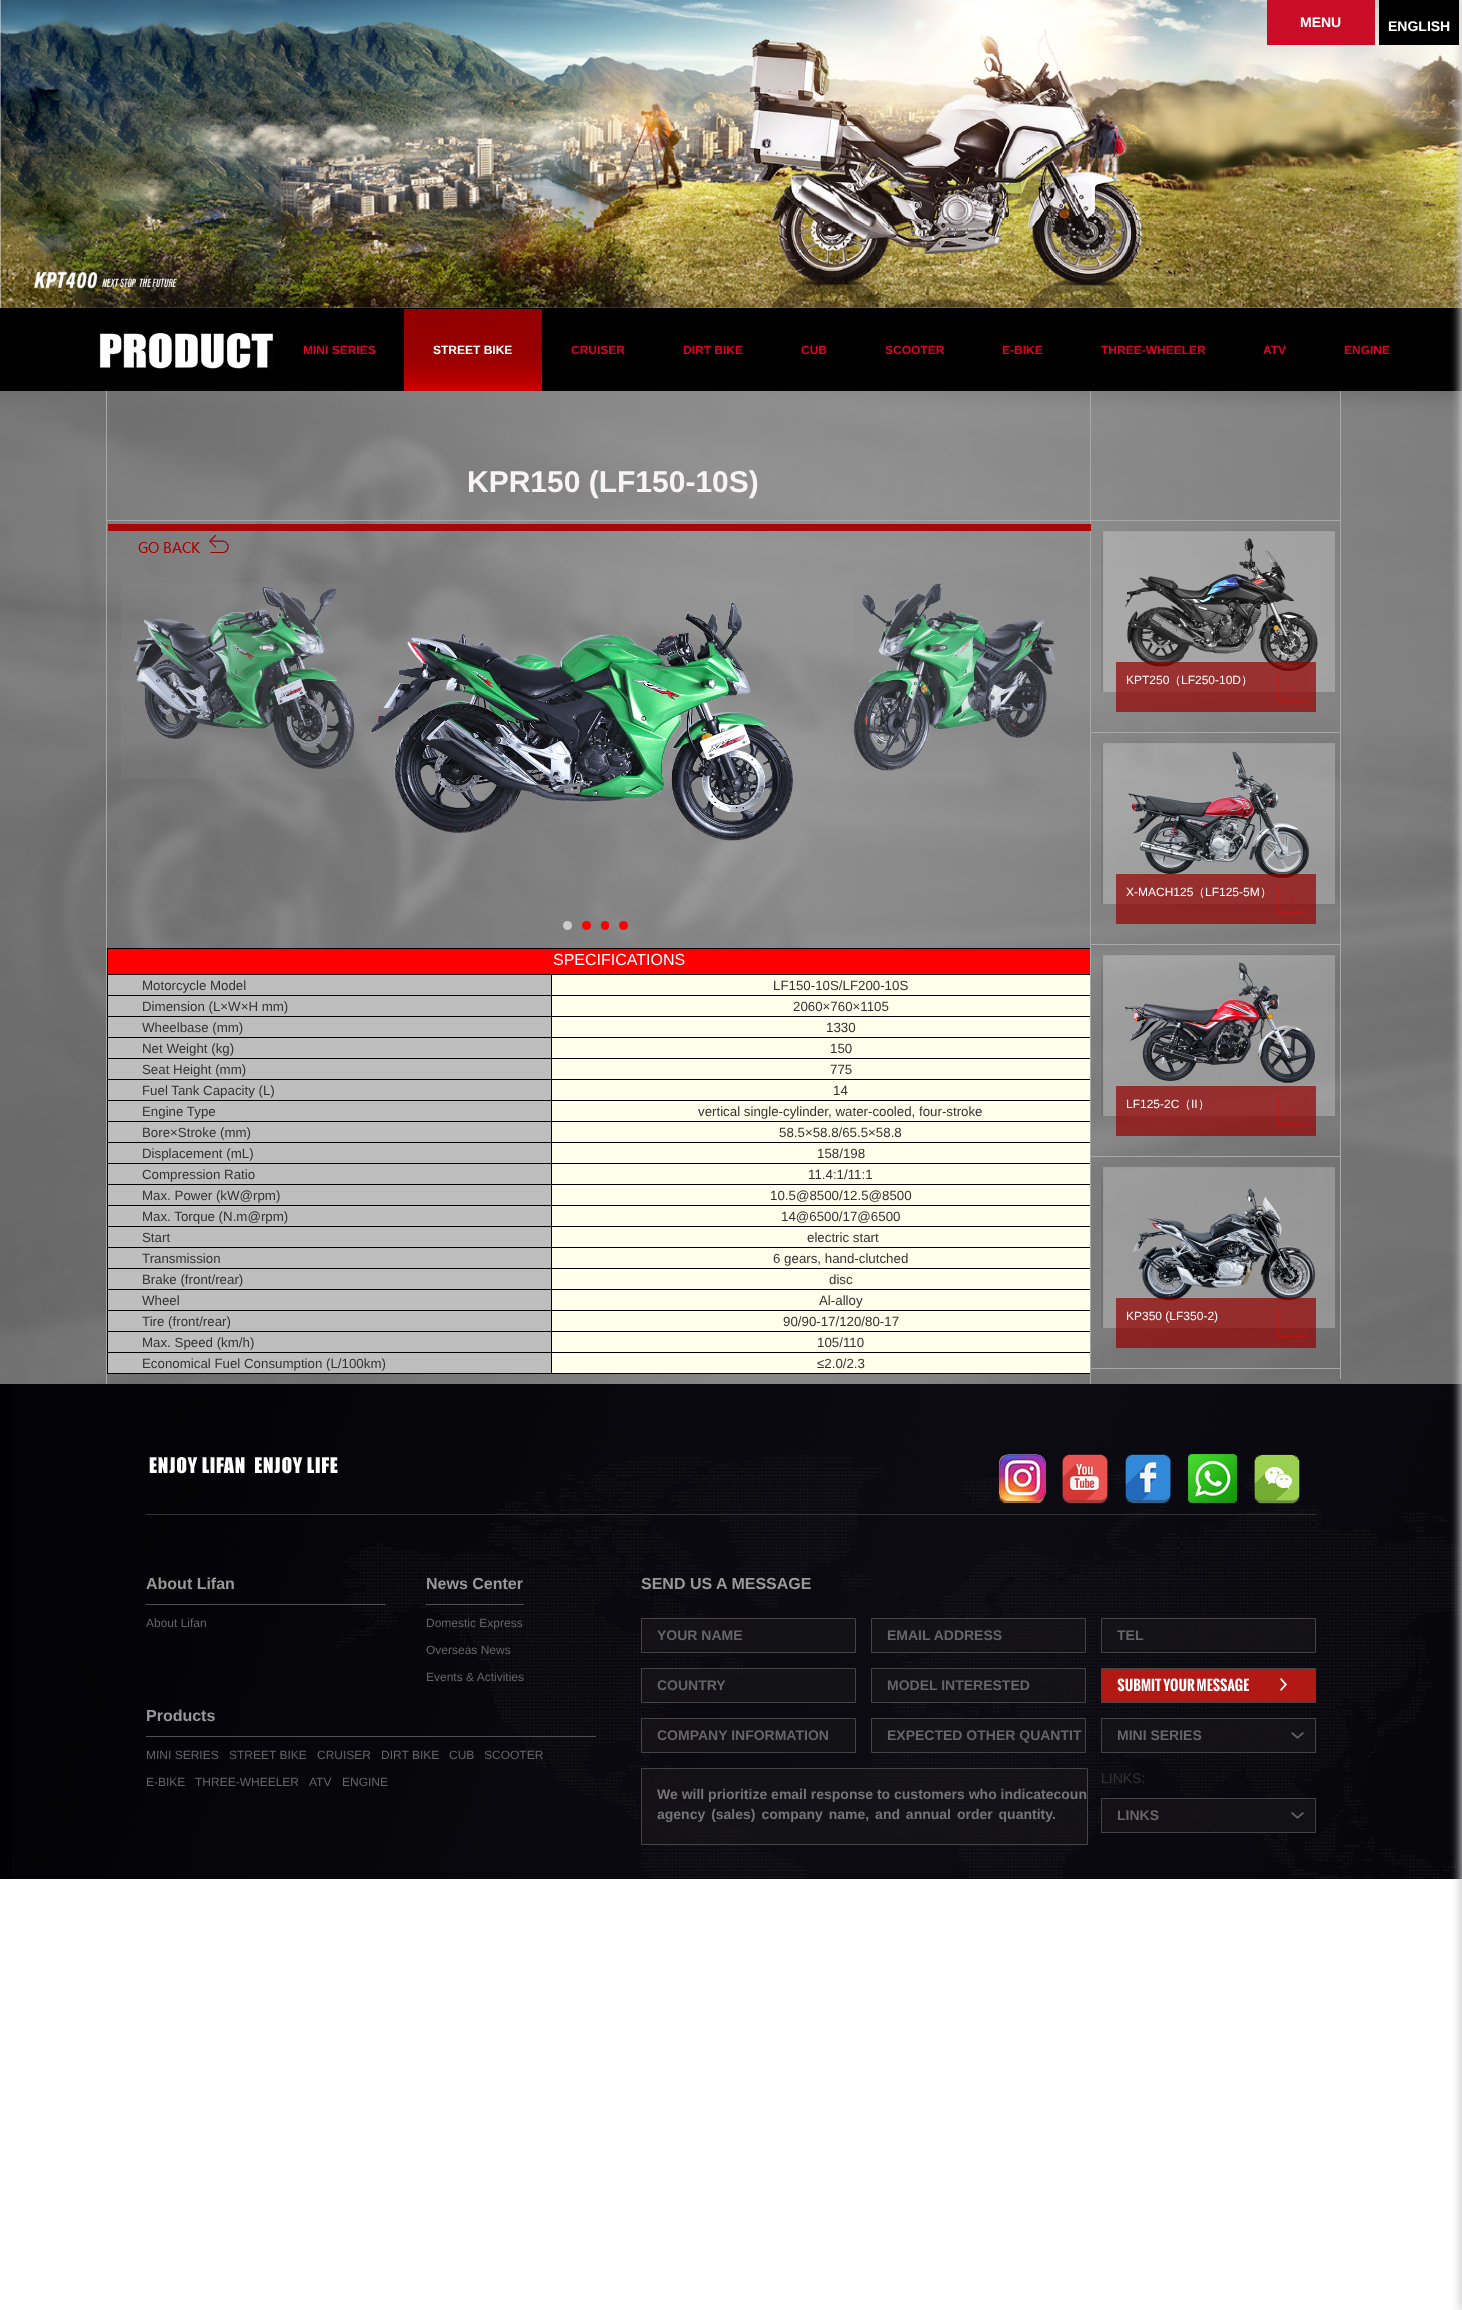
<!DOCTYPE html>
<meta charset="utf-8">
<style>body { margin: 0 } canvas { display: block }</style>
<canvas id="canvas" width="1462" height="2310"></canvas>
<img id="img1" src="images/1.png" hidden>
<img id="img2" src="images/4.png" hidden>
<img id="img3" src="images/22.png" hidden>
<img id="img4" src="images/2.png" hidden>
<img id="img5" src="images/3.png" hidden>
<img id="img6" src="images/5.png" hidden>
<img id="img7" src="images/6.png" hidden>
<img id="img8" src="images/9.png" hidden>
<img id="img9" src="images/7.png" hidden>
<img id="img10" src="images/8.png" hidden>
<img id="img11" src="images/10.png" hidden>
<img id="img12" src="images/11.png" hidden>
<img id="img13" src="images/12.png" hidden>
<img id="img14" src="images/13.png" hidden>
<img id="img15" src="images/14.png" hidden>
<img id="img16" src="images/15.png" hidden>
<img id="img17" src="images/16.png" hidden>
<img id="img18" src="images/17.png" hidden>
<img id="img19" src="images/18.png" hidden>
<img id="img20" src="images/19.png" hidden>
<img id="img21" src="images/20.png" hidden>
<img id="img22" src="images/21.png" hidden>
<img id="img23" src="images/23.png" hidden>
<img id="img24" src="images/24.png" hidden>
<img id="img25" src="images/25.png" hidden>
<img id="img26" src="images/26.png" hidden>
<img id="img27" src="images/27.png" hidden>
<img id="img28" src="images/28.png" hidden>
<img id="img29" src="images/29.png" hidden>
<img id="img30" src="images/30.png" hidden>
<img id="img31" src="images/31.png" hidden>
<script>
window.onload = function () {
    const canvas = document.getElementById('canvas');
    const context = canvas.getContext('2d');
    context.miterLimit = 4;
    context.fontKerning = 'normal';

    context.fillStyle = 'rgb(255, 255, 255)';
    context.fillRect(0, 0, 1462, 2310);
    context.drawImage(document.getElementById('img1'), 0, 0, 1462, 308);
    context.fillStyle = 'rgb(201, 13, 38)';
    context.fillRect(1267, 0, 108, 45);
    context.fillStyle = 'rgb(0, 0, 0)';
    context.fillRect(0, 308, 1462, 83);
    context.drawImage(document.getElementById('img2'), 0, 391, 1462, 993);
    context.drawImage(document.getElementById('img3'), 0, 1384, 1462, 495);
    context.fillStyle = 'rgb(204, 204, 204)';
    context.filter = 'blur(5px)';
    context.beginPath();
    context.rect(1460, 0, 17, 2310);
    context.fill();
    context.filter = 'none';
    context.fillStyle = 'rgb(0, 0, 0)';
    context.fillRect(1379, 0, 80, 45);
    context.drawImage(document.getElementById('img4'), 99, 333, 175, 36);
    context.drawImage(document.getElementById('img5'), 404, 309, 138, 82);
    context.fillStyle = 'rgb(168, 168, 168)';
    context.fillRect(1090, 391, 1, 993);
    context.fillRect(106, 520, 985, 1);
    context.fillRect(106, 391, 1, 993);
    context.fillRect(1340, 391, 1, 988);
    context.fillRect(1091, 520, 250, 1);
    context.fillStyle = 'rgb(164, 8, 9)';
    context.fillRect(108, 524, 983, 7);
    context.drawImage(document.getElementById('img6'), 138, 535, 91, 18);
    context.drawImage(document.getElementById('img7'), 133, 586, 222, 183);
    context.fillStyle = 'rgba(142, 142, 142, 0.2)';
    context.fillRect(121, 583, 243, 196);
    context.drawImage(document.getElementById('img8'), 422, 633, 188, 138);
    context.drawImage(document.getElementById('img9'), 370, 602, 424, 239);
    context.drawImage(document.getElementById('img10'), 853, 583, 203, 188);
    context.fillRect(854, 583, 202, 188);
    context.fillStyle = 'rgb(204, 204, 204)';
    context.beginPath();
    context.arc(567.5, 925.5, 4.5, 0, 2 * Math.PI);
    context.fill();
    context.fillStyle = 'rgb(255, 0, 0)';
    context.beginPath();
    context.arc(586.5, 925.5, 4.5, 0, 2 * Math.PI);
    context.fill();
    context.beginPath();
    context.roundRect(601, 921, 8, 9, 4);
    context.fill();
    context.beginPath();
    context.arc(623.5, 925.5, 4.5, 0, 2 * Math.PI);
    context.fill();
    context.fillRect(108, 949, 982, 25);
    context.fillStyle = 'rgb(0, 0, 0)';
    context.fillRect(107, 948, 983, 1);
    context.fillRect(551, 1373, 539, 1);
    context.fillRect(551, 1352, 1, 22);
    context.fillRect(551, 1352, 539, 1);
    context.fillRect(551, 1331, 1, 22);
    context.fillRect(551, 1331, 539, 1);
    context.fillRect(551, 1310, 1, 22);
    context.fillRect(551, 1310, 539, 1);
    context.fillRect(551, 1289, 1, 22);
    context.fillRect(551, 1289, 539, 1);
    context.fillRect(551, 1268, 1, 22);
    context.fillRect(551, 1268, 539, 1);
    context.fillRect(551, 1247, 1, 22);
    context.fillRect(551, 1247, 539, 1);
    context.fillRect(551, 1226, 1, 22);
    context.fillRect(551, 1226, 539, 1);
    context.fillRect(551, 1205, 1, 22);
    context.fillRect(551, 1205, 539, 1);
    context.fillRect(551, 1184, 1, 22);
    context.fillRect(551, 1184, 539, 1);
    context.fillRect(551, 1163, 1, 22);
    context.fillRect(551, 1163, 539, 1);
    context.fillRect(551, 1142, 1, 22);
    context.fillRect(551, 1142, 539, 1);
    context.fillRect(551, 1121, 1, 22);
    context.fillRect(551, 1121, 539, 1);
    context.fillRect(551, 1100, 1, 22);
    context.fillRect(551, 1100, 539, 1);
    context.fillRect(551, 1079, 1, 22);
    context.fillRect(551, 1079, 539, 1);
    context.fillRect(551, 1058, 1, 22);
    context.fillRect(551, 1058, 539, 1);
    context.fillRect(551, 1037, 1, 22);
    context.fillRect(551, 1037, 539, 1);
    context.fillRect(551, 1016, 1, 22);
    context.fillRect(551, 1016, 539, 1);
    context.fillRect(551, 995, 1, 22);
    context.fillRect(551, 995, 539, 1);
    context.fillRect(551, 974, 1, 22);
    context.fillRect(107, 1373, 445, 1);
    context.fillRect(107, 1352, 1, 22);
    context.fillRect(107, 1352, 445, 1);
    context.fillRect(107, 1331, 1, 22);
    context.fillRect(107, 1331, 445, 1);
    context.fillRect(107, 1310, 1, 22);
    context.fillRect(107, 1310, 445, 1);
    context.fillRect(107, 1289, 1, 22);
    context.fillRect(107, 1289, 445, 1);
    context.fillRect(107, 1268, 1, 22);
    context.fillRect(107, 1268, 445, 1);
    context.fillRect(107, 1247, 1, 22);
    context.fillRect(107, 1247, 445, 1);
    context.fillRect(107, 1226, 1, 22);
    context.fillRect(107, 1226, 445, 1);
    context.fillRect(107, 1205, 1, 22);
    context.fillRect(107, 1205, 445, 1);
    context.fillRect(107, 1184, 1, 22);
    context.fillRect(107, 1184, 445, 1);
    context.fillRect(107, 1163, 1, 22);
    context.fillRect(107, 1163, 445, 1);
    context.fillRect(107, 1142, 1, 22);
    context.fillRect(107, 1142, 445, 1);
    context.fillRect(107, 1121, 1, 22);
    context.fillRect(107, 1121, 445, 1);
    context.fillRect(107, 1100, 1, 22);
    context.fillRect(107, 1100, 445, 1);
    context.fillRect(107, 1079, 1, 22);
    context.fillRect(107, 1079, 445, 1);
    context.fillRect(107, 1058, 1, 22);
    context.fillRect(107, 1058, 445, 1);
    context.fillRect(107, 1037, 1, 22);
    context.fillRect(107, 1037, 445, 1);
    context.fillRect(107, 1016, 1, 22);
    context.fillRect(107, 1016, 445, 1);
    context.fillRect(107, 995, 1, 22);
    context.fillRect(107, 995, 445, 1);
    context.fillRect(107, 974, 1, 22);
    context.fillRect(107, 974, 983, 1);
    context.fillRect(107, 948, 1, 27);
    context.fillStyle = 'rgb(190, 190, 190)';
    context.fillRect(108, 975, 443, 20);
    context.fillStyle = 'rgb(255, 255, 235)';
    context.fillRect(552, 975, 538, 20);
    context.fillStyle = 'rgb(190, 190, 190)';
    context.fillRect(108, 996, 443, 20);
    context.fillStyle = 'rgb(255, 255, 235)';
    context.fillRect(552, 996, 538, 20);
    context.fillStyle = 'rgb(190, 190, 190)';
    context.fillRect(108, 1017, 443, 20);
    context.fillStyle = 'rgb(255, 255, 235)';
    context.fillRect(552, 1017, 538, 20);
    context.fillStyle = 'rgb(190, 190, 190)';
    context.fillRect(108, 1038, 443, 20);
    context.fillStyle = 'rgb(255, 255, 235)';
    context.fillRect(552, 1038, 538, 20);
    context.fillStyle = 'rgb(190, 190, 190)';
    context.fillRect(108, 1059, 443, 20);
    context.fillStyle = 'rgb(255, 255, 235)';
    context.fillRect(552, 1059, 538, 20);
    context.fillStyle = 'rgb(190, 190, 190)';
    context.fillRect(108, 1080, 443, 20);
    context.fillStyle = 'rgb(255, 255, 235)';
    context.fillRect(552, 1080, 538, 20);
    context.fillStyle = 'rgb(190, 190, 190)';
    context.fillRect(108, 1101, 443, 20);
    context.fillStyle = 'rgb(255, 255, 235)';
    context.fillRect(552, 1101, 538, 20);
    context.fillStyle = 'rgb(190, 190, 190)';
    context.fillRect(108, 1122, 443, 20);
    context.fillStyle = 'rgb(255, 255, 235)';
    context.fillRect(552, 1122, 538, 20);
    context.fillStyle = 'rgb(190, 190, 190)';
    context.fillRect(108, 1143, 443, 20);
    context.fillStyle = 'rgb(255, 255, 235)';
    context.fillRect(552, 1143, 538, 20);
    context.fillStyle = 'rgb(190, 190, 190)';
    context.fillRect(108, 1164, 443, 20);
    context.fillStyle = 'rgb(255, 255, 235)';
    context.fillRect(552, 1164, 538, 20);
    context.fillStyle = 'rgb(190, 190, 190)';
    context.fillRect(108, 1185, 443, 20);
    context.fillStyle = 'rgb(255, 255, 235)';
    context.fillRect(552, 1185, 538, 20);
    context.fillStyle = 'rgb(190, 190, 190)';
    context.fillRect(108, 1206, 443, 20);
    context.fillStyle = 'rgb(255, 255, 235)';
    context.fillRect(552, 1206, 538, 20);
    context.fillStyle = 'rgb(190, 190, 190)';
    context.fillRect(108, 1227, 443, 20);
    context.fillStyle = 'rgb(255, 255, 235)';
    context.fillRect(552, 1227, 538, 20);
    context.fillStyle = 'rgb(190, 190, 190)';
    context.fillRect(108, 1248, 443, 20);
    context.fillStyle = 'rgb(255, 255, 235)';
    context.fillRect(552, 1248, 538, 20);
    context.fillStyle = 'rgb(190, 190, 190)';
    context.fillRect(108, 1269, 443, 20);
    context.fillStyle = 'rgb(255, 255, 235)';
    context.fillRect(552, 1269, 538, 20);
    context.fillStyle = 'rgb(190, 190, 190)';
    context.fillRect(108, 1290, 443, 20);
    context.fillStyle = 'rgb(255, 255, 235)';
    context.fillRect(552, 1290, 538, 20);
    context.fillStyle = 'rgb(190, 190, 190)';
    context.fillRect(108, 1311, 443, 20);
    context.fillStyle = 'rgb(255, 255, 235)';
    context.fillRect(552, 1311, 538, 20);
    context.fillStyle = 'rgb(190, 190, 190)';
    context.fillRect(108, 1332, 443, 20);
    context.fillStyle = 'rgb(255, 255, 235)';
    context.fillRect(552, 1332, 538, 20);
    context.fillStyle = 'rgb(190, 190, 190)';
    context.fillRect(108, 1353, 443, 20);
    context.fillStyle = 'rgb(255, 255, 235)';
    context.fillRect(552, 1353, 538, 20);
    context.fillStyle = 'rgb(168, 168, 168)';
    context.fillRect(1091, 732, 249, 1);
    context.drawImage(document.getElementById('img11'), 1101, 530, 234, 162);
    context.drawImage(document.getElementById('img12'), 1125, 538, 193, 133);
    context.fillStyle = 'rgba(148, 0, 0, 0.7)';
    context.fillRect(1116, 662, 200, 50);
    context.drawImage(document.getElementById('img13'), 1278, 673, 28, 28);
    context.fillStyle = 'rgb(168, 168, 168)';
    context.fillRect(1091, 944, 249, 1);
    context.drawImage(document.getElementById('img14'), 1101, 742, 234, 162);
    context.drawImage(document.getElementById('img15'), 1128, 751, 181, 127);
    context.fillStyle = 'rgba(148, 0, 0, 0.7)';
    context.fillRect(1116, 874, 200, 50);
    context.drawImage(document.getElementById('img16'), 1278, 885, 28, 28);
    context.fillStyle = 'rgb(168, 168, 168)';
    context.fillRect(1091, 1156, 249, 1);
    context.drawImage(document.getElementById('img17'), 1101, 954, 234, 162);
    context.drawImage(document.getElementById('img18'), 1125, 962, 190, 121);
    context.fillStyle = 'rgba(148, 0, 0, 0.7)';
    context.fillRect(1116, 1086, 200, 50);
    context.drawImage(document.getElementById('img19'), 1278, 1097, 28, 28);
    context.fillStyle = 'rgb(168, 168, 168)';
    context.fillRect(1091, 1368, 249, 1);
    context.drawImage(document.getElementById('img20'), 1101, 1167, 234, 161);
    context.drawImage(document.getElementById('img21'), 1132, 1187, 184, 114);
    context.fillStyle = 'rgba(148, 0, 0, 0.7)';
    context.fillRect(1116, 1298, 200, 50);
    context.drawImage(document.getElementById('img22'), 1278, 1309, 28, 28);
    context.fillStyle = 'rgb(50, 50, 50)';
    context.fillRect(146, 1514, 1170, 1);
    context.drawImage(document.getElementById('img23'), 149, 1457, 189, 17);
    context.drawImage(document.getElementById('img24'), 999, 1454, 47, 49);
    context.drawImage(document.getElementById('img25'), 1062, 1454, 46, 50);
    context.drawImage(document.getElementById('img26'), 1125, 1454, 46, 50);
    context.drawImage(document.getElementById('img27'), 1188, 1454, 49, 49);
    context.drawImage(document.getElementById('img28'), 1254, 1454, 46, 50);
    context.fillStyle = 'rgb(79, 78, 83)';
    context.fillRect(146, 1604, 240, 1);
    context.fillRect(426, 1604, 98, 1);
    context.fillRect(146, 1736, 450, 1);
    context.fillStyle = 'rgba(23, 22, 25, 0.7)';
    context.beginPath();
    context.rect(641.5, 1618.5, 214, 34);
    context.fill();
    context.strokeStyle = 'rgb(68, 68, 71)';
    context.stroke();
    context.beginPath();
    context.rect(871.5, 1618.5, 214, 34);
    context.fill();
    context.stroke();
    context.beginPath();
    context.rect(1101.5, 1618.5, 214, 34);
    context.fill();
    context.stroke();
    context.beginPath();
    context.rect(641.5, 1668.5, 214, 34);
    context.fill();
    context.stroke();
    context.beginPath();
    context.rect(871.5, 1668.5, 214, 34);
    context.fill();
    context.stroke();
    context.fillStyle = 'rgb(178, 24, 20)';
    context.fillRect(1102, 1669, 213, 33);
    context.drawImage(document.getElementById('img29'), 1117, 1678, 170, 14);
    context.strokeRect(1101.5, 1668.5, 214, 34);
    context.fillStyle = 'rgba(23, 22, 25, 0.7)';
    context.beginPath();
    context.rect(641.5, 1718.5, 214, 34);
    context.fill();
    context.stroke();
    context.beginPath();
    context.rect(871.5, 1718.5, 214, 34);
    context.fill();
    context.stroke();
    context.fillRect(1102, 1719, 213, 33);
    context.drawImage(document.getElementById('img30'), 1291, 1732, 13, 7);
    context.strokeRect(1101.5, 1718.5, 214, 34);
    context.beginPath();
    context.rect(641.5, 1768.5, 446, 76);
    context.fill();
    context.stroke();
    context.fillRect(1102, 1799, 213, 33);
    context.drawImage(document.getElementById('img31'), 1291, 1812, 13, 7);
    context.strokeRect(1101.5, 1798.5, 214, 34);
    context.font = 'bold 14px Liberation Sans';
    context.fillStyle = 'rgb(255, 255, 255)';
    context.fillText('MENU', 1300, 27);
    context.fillText('ENGLISH', 1388, 31);
    context.font = 'bold 12px Liberation Sans';
    context.fillStyle = 'rgb(223, 0, 36)';
    context.fillText('MINI SERIES', 303, 354);
    context.fillStyle = 'rgb(255, 255, 255)';
    context.fillText('STREET BIKE', 433, 354);
    context.fillStyle = 'rgb(223, 0, 36)';
    context.fillText('CRUISER', 571, 354);
    context.fillText('DIRT BIKE', 683, 354);
    context.fillText('CUB', 801, 354);
    context.fillText('SCOOTER', 885, 354);
    context.fillText('E-BIKE', 1002, 354);
    context.fillText('THREE-WHEELER', 1101, 354);
    context.fillText('ATV', 1263, 354);
    context.fillText('ENGINE', 1344, 354);
    context.font = 'bold 30px Liberation Sans';
    context.fillStyle = 'rgb(248, 244, 245)';
    context.fillText('KPR150 (LF150-10S)', 467, 492);
    context.font = '16px Liberation Sans';
    context.fillStyle = 'rgb(255, 255, 255)';
    context.fillText('SPECIFICATIONS', 553, 965);
    context.font = '13.3px Liberation Sans';
    context.fillStyle = 'rgb(51, 51, 51)';
    context.fillText('Motorcycle Model', 142, 990);
    context.fillText('LF150-10S/LF200-10S', 773, 990);
    context.fillText('Dimension (L×W×H mm)', 142, 1011);
    context.fillText('2060×760×1105', 793, 1011);
    context.fillText('Wheelbase (mm)', 142, 1032);
    context.fillText('1330', 826, 1032);
    context.fillText('Net Weight (kg)', 142, 1053);
    context.fillText('150', 830, 1053);
    context.fillText('Seat Height (mm)', 142, 1074);
    context.fillText('775', 830, 1074);
    context.fillText('Fuel Tank Capacity (L)', 142, 1095);
    context.fillText('14', 833, 1095);
    context.fillText('Engine Type', 142, 1116);
    context.fillText('vertical single-cylinder, water-cooled, four-stroke', 698, 1116);
    context.fillText('Bore×Stroke (mm)', 142, 1137);
    context.fillText('58.5×58.8/65.5×58.8', 779, 1137);
    context.fillText('Displacement (mL)', 142, 1158);
    context.fillText('158/198', 817, 1158);
    context.fillText('Compression Ratio', 142, 1179);
    context.fillText('11.4:1/11:1', 808, 1179);
    context.fillText('Max. Power (kW@rpm)', 142, 1200);
    context.fillText('10.5@8500/12.5@8500', 770, 1200);
    context.fillText('Max. Torque (N.m@rpm)', 142, 1221);
    context.fillText('14@6500/17@6500', 781, 1221);
    context.fillText('Start', 142, 1242);
    context.fillText('electric start', 807, 1242);
    context.fillText('Transmission', 142, 1263);
    context.fillText('6 gears, hand-clutched', 773, 1263);
    context.fillText('Brake (front/rear)', 142, 1284);
    context.fillText('disc', 829, 1284);
    context.fillText('Wheel', 142, 1305);
    context.fillText('Al-alloy', 819, 1305);
    context.fillText('Tire (front/rear)', 142, 1326);
    context.fillText('90/90-17/120/80-17', 783, 1326);
    context.fillText('Max. Speed (km/h)', 142, 1347);
    context.fillText('105/110', 817, 1347);
    context.fillText('Economical Fuel Consumption (L/100km)', 142, 1368);
    context.fillText('≤2.0/2.3', 817, 1368);
    context.font = '12px Liberation Sans';
    context.fillStyle = 'rgb(255, 255, 255)';
    context.fillText('KPT250', 1126, 684);
    context.font = '500 12px WenQuanYi Zen Hei';
    context.fillText('（', 1169, 684);
    context.font = '12px Liberation Sans';
    context.fillText('LF250-10D', 1181, 684);
    context.font = '500 12px WenQuanYi Zen Hei';
    context.fillText('）', 1241, 684);
    context.font = '12px Liberation Sans';
    context.fillText('X-MACH125', 1126, 896);
    context.font = '500 12px WenQuanYi Zen Hei';
    context.fillText('（', 1193, 896);
    context.font = '12px Liberation Sans';
    context.fillText('LF125-5M', 1205, 896);
    context.font = '500 12px WenQuanYi Zen Hei';
    context.fillText('）', 1260, 896);
    context.font = '12px Liberation Sans';
    context.fillText('LF125-2C', 1126, 1108);
    context.font = '500 12px WenQuanYi Zen Hei';
    context.fillText('（', 1179, 1108);
    context.font = '12px Liberation Sans';
    context.fillText('II', 1191, 1108);
    context.font = '500 12px WenQuanYi Zen Hei';
    context.fillText('）', 1198, 1108);
    context.font = '12px Liberation Sans';
    context.fillText('KP350 (LF350-2)', 1126, 1320);
    context.font = 'bold 16px Liberation Sans';
    context.fillStyle = 'rgb(153, 153, 153)';
    context.fillText('About Lifan', 146, 1589);
    context.font = '12px Liberation Sans';
    context.fillStyle = 'rgb(102, 102, 102)';
    context.fillText('About Lifan', 146, 1627);
    context.font = 'bold 16px Liberation Sans';
    context.fillStyle = 'rgb(153, 153, 153)';
    context.fillText('News Center', 426, 1589);
    context.font = '12px Liberation Sans';
    context.fillStyle = 'rgb(102, 102, 102)';
    context.fillText('Domestic Express', 426, 1627);
    context.fillText('Overseas News', 426, 1654);
    context.fillText('Events & Activities', 426, 1681);
    context.font = 'bold 16px Liberation Sans';
    context.fillStyle = 'rgb(153, 153, 153)';
    context.fillText('Products', 146, 1721);
    context.font = '12px Liberation Sans';
    context.fillStyle = 'rgb(102, 102, 102)';
    context.fillText('MINI SERIES', 146, 1759);
    context.fillText('STREET BIKE', 229, 1759);
    context.fillText('CRUISER', 317, 1759);
    context.fillText('DIRT BIKE', 381, 1759);
    context.fillText('CUB', 449, 1759);
    context.fillText('SCOOTER', 484, 1759);
    context.fillText('E-BIKE', 146, 1786);
    context.fillText('THREE-WHEELER', 195, 1786);
    context.fillText('ATV', 309, 1786);
    context.fillText('ENGINE', 342, 1786);
    context.font = 'bold 16px Liberation Sans';
    context.fillStyle = 'rgb(153, 153, 153)';
    context.fillText('SEND US A MESSAGE', 641, 1589);
    context.font = 'bold 14px Liberation Sans';
    context.fillStyle = 'rgb(102, 102, 102)';
    context.fillText('YOUR NAME', 657, 1640);
    context.fillText('EMAIL ADDRESS', 887, 1640);
    context.fillText('TEL', 1117, 1640);
    context.fillText('COUNTRY', 657, 1690);
    context.fillText('MODEL INTERESTED', 887, 1690);
    context.fillText('COMPANY INFORMATION', 657, 1740);
    context.fillText('EXPECTED OTHER QUANTIT', 887, 1740);
    context.fillText('MINI SERIES', 1117, 1740);
    context.fillStyle = 'rgb(117, 117, 117)';
    context.fillText('We will prioritize email response to customers who indicatecoun', 657, 1799);
    context.wordSpacing = '2px';
    context.fillText('agency (sales) company name, and annual order quantity.', 657, 1819);
    context.wordSpacing = '0px';
    context.font = '14px Liberation Sans';
    context.fillStyle = 'rgb(51, 51, 51)';
    context.fillText('LINKS:', 1101, 1783);
    context.font = 'bold 14px Liberation Sans';
    context.fillStyle = 'rgb(102, 102, 102)';
    context.fillText('LINKS', 1117, 1820);
};
</script>
